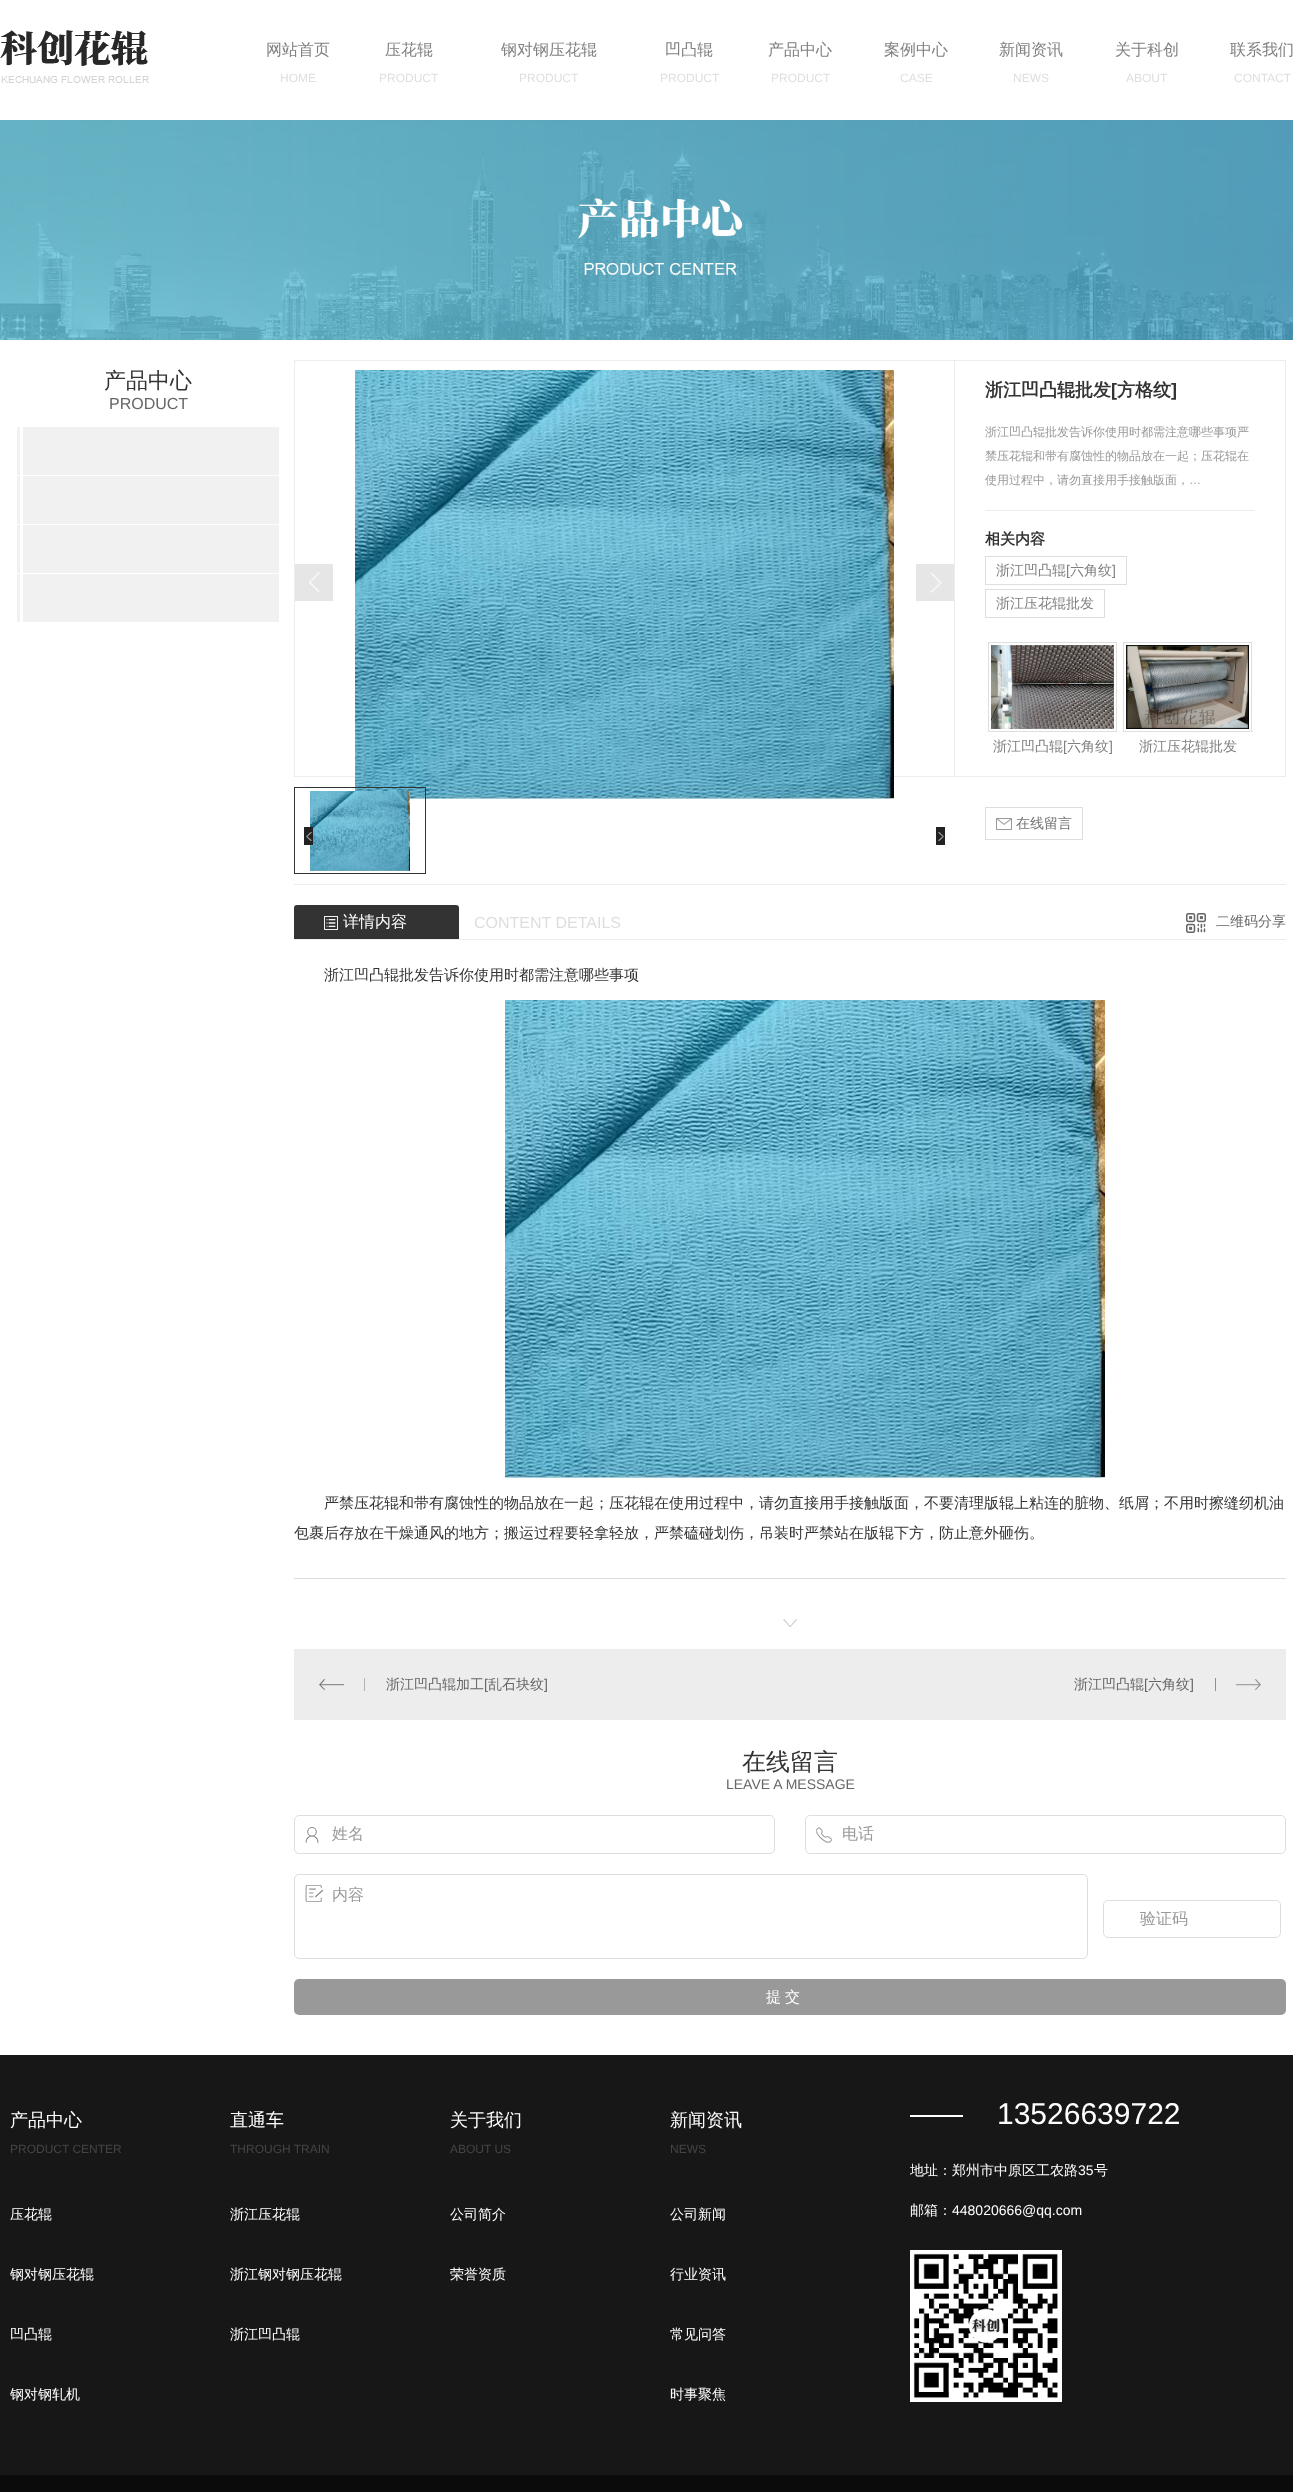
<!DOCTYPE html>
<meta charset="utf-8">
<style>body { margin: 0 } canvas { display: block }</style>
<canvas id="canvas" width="1293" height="2492"></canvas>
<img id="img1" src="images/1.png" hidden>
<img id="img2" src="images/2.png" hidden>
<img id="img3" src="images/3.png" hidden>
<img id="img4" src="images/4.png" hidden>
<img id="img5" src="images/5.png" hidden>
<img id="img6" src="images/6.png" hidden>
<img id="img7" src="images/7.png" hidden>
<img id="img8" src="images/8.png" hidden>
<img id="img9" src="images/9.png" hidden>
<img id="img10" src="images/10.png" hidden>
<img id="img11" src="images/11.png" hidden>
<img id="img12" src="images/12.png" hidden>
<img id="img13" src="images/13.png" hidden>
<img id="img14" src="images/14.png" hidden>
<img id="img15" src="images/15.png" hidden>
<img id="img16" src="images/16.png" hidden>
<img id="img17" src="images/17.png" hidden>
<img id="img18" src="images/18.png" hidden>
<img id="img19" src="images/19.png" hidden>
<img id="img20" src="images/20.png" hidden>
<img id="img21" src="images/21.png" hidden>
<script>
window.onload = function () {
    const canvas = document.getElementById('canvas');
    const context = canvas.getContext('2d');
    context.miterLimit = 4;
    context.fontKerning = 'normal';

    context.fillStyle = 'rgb(255, 255, 255)';
    context.fillRect(0, 0, 1293, 2492);
    context.drawImage(document.getElementById('img1'), 0, 30, 149, 53);
    context.drawImage(document.getElementById('img2'), 0, 120, 1293, 220);
    context.fillStyle = 'rgb(241, 241, 241)';
    context.fillRect(17, 427, 262, 48);
    context.fillStyle = 'rgb(255, 255, 255)';
    context.fillRect(20, 427, 3, 48);
    context.fillStyle = 'rgb(241, 241, 241)';
    context.fillRect(17, 476, 262, 48);
    context.fillStyle = 'rgb(255, 255, 255)';
    context.fillRect(20, 476, 3, 48);
    context.fillStyle = 'rgb(241, 241, 241)';
    context.fillRect(17, 525, 262, 48);
    context.fillStyle = 'rgb(255, 255, 255)';
    context.fillRect(20, 525, 3, 48);
    context.fillStyle = 'rgb(241, 241, 241)';
    context.fillRect(17, 574, 262, 48);
    context.fillStyle = 'rgb(255, 255, 255)';
    context.fillRect(20, 574, 3, 48);
    context.strokeStyle = 'rgb(237, 237, 237)';
    context.strokeRect(294.5, 360.5, 660, 416);
    context.fillStyle = 'rgb(230, 230, 230)';
    context.fillRect(295, 564, 38, 37);
    context.drawImage(document.getElementById('img3'), 309, 572, 11, 20);
    context.drawImage(document.getElementById('img4'), 355, 370, 539, 429);
    context.fillRect(916, 564, 38, 37);
    context.drawImage(document.getElementById('img5'), 930, 573, 12, 20);
    context.strokeStyle = 'rgb(51, 51, 51)';
    context.strokeRect(294.5, 787.5, 131, 86);
    context.drawImage(document.getElementById('img6'), 310, 791, 100, 80);
    context.drawImage(document.getElementById('img7'), 304, 827, 9, 18);
    context.drawImage(document.getElementById('img8'), 936, 827, 9, 18);
    context.fillStyle = 'rgb(237, 237, 237)';
    context.fillRect(955, 360, 331, 1);
    context.fillRect(1285, 360, 1, 417);
    context.fillRect(955, 776, 331, 1);
    context.fillRect(985, 510, 270, 1);
    context.strokeStyle = 'rgb(222, 222, 221)';
    context.strokeRect(985.5, 556.5, 141, 28);
    context.strokeRect(985.5, 589.5, 119, 28);
    context.strokeRect(988.5, 642.5, 128, 89);
    context.drawImage(document.getElementById('img9'), 991, 645, 123, 84);
    context.strokeRect(1123.5, 642.5, 128, 89);
    context.drawImage(document.getElementById('img10'), 1126, 645, 123, 84);
    context.strokeRect(985.5, 807.5, 97, 32);
    context.drawImage(document.getElementById('img11'), 996, 818, 16, 12);
    context.fillRect(294, 884, 992, 1);
    context.fillStyle = 'rgb(222, 222, 221)';
    context.fillRect(294, 1578, 992, 1);
    context.fillStyle = 'rgb(237, 237, 237)';
    context.fillRect(294, 939, 992, 1);
    context.fillStyle = 'rgb(51, 51, 51)';
    context.beginPath();
    context.roundRect(294, 905, 165, 34, [3, 3, 0, 0]);
    context.fill();
    context.drawImage(document.getElementById('img12'), 324, 916, 14, 14);
    context.drawImage(document.getElementById('img13'), 1186, 913, 20, 20);
    context.drawImage(document.getElementById('img14'), 505, 1000, 600, 478);
    context.drawImage(document.getElementById('img15'), 783, 1619, 14, 8);
    context.fillStyle = 'rgb(237, 237, 237)';
    context.fillRect(294, 1649, 992, 71);
    context.drawImage(document.getElementById('img16'), 319, 1678, 46, 13);
    context.drawImage(document.getElementById('img17'), 1215, 1678, 46, 13);
    context.drawImage(document.getElementById('img18'), 305, 1827, 14, 16);
    context.beginPath();
    context.roundRect(294.5, 1815.5, 480, 38, 4.5);
    context.stroke();
    context.drawImage(document.getElementById('img19'), 816, 1827, 16, 16);
    context.beginPath();
    context.roundRect(805.5, 1815.5, 480, 38, 4.5);
    context.stroke();
    context.drawImage(document.getElementById('img20'), 305, 1885, 19, 17);
    context.beginPath();
    context.roundRect(294.5, 1874.5, 793, 84, 4.5);
    context.stroke();
    context.beginPath();
    context.roundRect(1103.5, 1900.5, 177, 37, 4.5);
    context.stroke();
    context.fillStyle = 'rgb(153, 153, 153)';
    context.beginPath();
    context.roundRect(294, 1979, 992, 36, 5);
    context.fill();
    context.fillStyle = 'rgb(23, 23, 23)';
    context.fillRect(0, 2055, 1293, 420);
    context.fillStyle = 'rgb(255, 255, 255)';
    context.fillRect(910, 2115, 53, 2);
    context.drawImage(document.getElementById('img21'), 910, 2250, 152, 152);
    context.fillStyle = 'rgb(11, 11, 11)';
    context.fillRect(0, 2475, 1293, 17);
    context.font = '500 16px WenQuanYi Zen Hei';
    context.fillStyle = 'rgb(128, 128, 128)';
    context.fillText('网站首页', 266, 55);
    context.font = '12px Liberation Sans';
    context.fillStyle = 'rgb(222, 222, 221)';
    context.fillText('HOME', 280, 82);
    context.font = '500 16px WenQuanYi Zen Hei';
    context.fillStyle = 'rgb(128, 128, 128)';
    context.fillText('压花辊', 385, 55);
    context.font = '12px Liberation Sans';
    context.fillStyle = 'rgb(222, 222, 221)';
    context.fillText('PRODUCT', 379, 82);
    context.font = '500 16px WenQuanYi Zen Hei';
    context.fillStyle = 'rgb(128, 128, 128)';
    context.fillText('钢对钢压花辊', 501, 55);
    context.font = '12px Liberation Sans';
    context.fillStyle = 'rgb(222, 222, 221)';
    context.fillText('PRODUCT', 519, 82);
    context.font = '500 16px WenQuanYi Zen Hei';
    context.fillStyle = 'rgb(128, 128, 128)';
    context.fillText('凹凸辊', 665, 55);
    context.font = '12px Liberation Sans';
    context.fillStyle = 'rgb(222, 222, 221)';
    context.fillText('PRODUCT', 660, 82);
    context.font = '500 16px WenQuanYi Zen Hei';
    context.fillStyle = 'rgb(128, 128, 128)';
    context.fillText('产品中心', 768, 55);
    context.font = '12px Liberation Sans';
    context.fillStyle = 'rgb(222, 222, 221)';
    context.fillText('PRODUCT', 771, 82);
    context.font = '500 16px WenQuanYi Zen Hei';
    context.fillStyle = 'rgb(128, 128, 128)';
    context.fillText('案例中心', 884, 55);
    context.font = '12px Liberation Sans';
    context.fillStyle = 'rgb(222, 222, 221)';
    context.fillText('CASE', 900, 82);
    context.font = '500 16px WenQuanYi Zen Hei';
    context.fillStyle = 'rgb(128, 128, 128)';
    context.fillText('新闻资讯', 999, 55);
    context.font = '12px Liberation Sans';
    context.fillStyle = 'rgb(222, 222, 221)';
    context.fillText('NEWS', 1013, 82);
    context.font = '500 16px WenQuanYi Zen Hei';
    context.fillStyle = 'rgb(128, 128, 128)';
    context.fillText('关于科创', 1115, 55);
    context.font = '12px Liberation Sans';
    context.fillStyle = 'rgb(222, 222, 221)';
    context.fillText('ABOUT', 1126, 82);
    context.font = '500 16px WenQuanYi Zen Hei';
    context.fillStyle = 'rgb(128, 128, 128)';
    context.fillText('联系我们', 1230, 55);
    context.font = '12px Liberation Sans';
    context.fillStyle = 'rgb(222, 222, 221)';
    context.fillText('CONTACT', 1234, 82);
    context.font = '500 22px WenQuanYi Zen Hei';
    context.fillStyle = 'rgb(51, 51, 51)';
    context.fillText('产品中心', 104, 388);
    context.font = '16px Liberation Sans';
    context.fillStyle = 'rgb(102, 102, 102)';
    context.fillText('PRODUCT', 109, 409);
    context.font = 'bold 18px WenQuanYi Zen Hei';
    context.fillStyle = 'rgb(51, 51, 51)';
    context.fillText('浙江凹凸辊批发', 985, 396);
    context.font = 'bold 18px Liberation Sans';
    context.fillText('[', 1111, 396);
    context.font = 'bold 18px WenQuanYi Zen Hei';
    context.fillText('方格纹', 1117, 396);
    context.font = 'bold 18px Liberation Sans';
    context.fillText(']', 1171, 396);
    context.font = '500 12px WenQuanYi Zen Hei';
    context.fillStyle = 'rgb(153, 153, 153)';
    context.fillText('浙江凹凸辊批发告诉你使用时都需注意哪些事项严', 985, 436);
    context.fillText('禁压花辊和带有腐蚀性的物品放在一起；压花辊在', 985, 460);
    context.fillText('使用过程中，请勿直接用手接触版面，', 985, 484);
    context.font = '12px Liberation Sans';
    context.fillText('…', 1189, 484);
    context.font = 'bold 15px WenQuanYi Zen Hei';
    context.fillStyle = 'rgb(51, 51, 51)';
    context.fillText('相关内容', 985, 544);
    context.font = '500 14px WenQuanYi Zen Hei';
    context.fillStyle = 'rgb(128, 128, 128)';
    context.fillText('浙江凹凸辊', 996, 575);
    context.font = '14px Liberation Sans';
    context.fillText('[', 1066, 575);
    context.font = '500 14px WenQuanYi Zen Hei';
    context.fillText('六角纹', 1070, 575);
    context.font = '14px Liberation Sans';
    context.fillText(']', 1112, 575);
    context.font = '500 14px WenQuanYi Zen Hei';
    context.fillText('浙江压花辊批发', 996, 608);
    context.fillText('浙江凹凸辊', 993, 751);
    context.font = '14px Liberation Sans';
    context.fillText('[', 1063, 751);
    context.font = '500 14px WenQuanYi Zen Hei';
    context.fillText('六角纹', 1067, 751);
    context.font = '14px Liberation Sans';
    context.fillText(']', 1109, 751);
    context.font = '500 14px WenQuanYi Zen Hei';
    context.fillText('浙江压花辊批发', 1139, 751);
    context.fillStyle = 'rgb(115, 115, 115)';
    context.fillText('在线留言', 1016, 828);
    context.font = '500 16px WenQuanYi Zen Hei';
    context.fillStyle = 'rgb(255, 255, 255)';
    context.fillText('详情内容', 343, 927);
    context.font = '16px Liberation Sans';
    context.fillStyle = 'rgb(222, 222, 221)';
    context.fillText('CONTENT DETAILS', 474, 928);
    context.font = '500 14px WenQuanYi Zen Hei';
    context.fillStyle = 'rgb(102, 102, 102)';
    context.fillText('二维码分享', 1216, 926);
    context.font = '500 15px WenQuanYi Zen Hei';
    context.fillStyle = 'rgb(51, 51, 51)';
    context.fillText('浙江凹凸辊批发告诉你使用时都需注意哪些事项', 324, 980);
    context.fillText('严禁压花辊和带有腐蚀性的物品放在一起；压花辊在使用过程中，请勿直接用手接触版面，不要清理版辊上粘连的脏物、纸屑；不用时擦缝纫机油', 324, 1508);
    context.fillText('包裹后存放在干燥通风的地方；搬运过程要轻拿轻放，严禁磕碰划伤，吊装时严禁站在版辊下方，防止意外砸伤。', 294, 1538);
    context.font = '500 14px WenQuanYi Zen Hei';
    context.fillStyle = 'rgb(102, 102, 102)';
    context.fillText('浙江凹凸辊加工', 386, 1689);
    context.font = '14px Liberation Sans';
    context.fillText('[', 484, 1689);
    context.font = '500 14px WenQuanYi Zen Hei';
    context.fillText('乱石块纹', 488, 1689);
    context.font = '14px Liberation Sans';
    context.fillText(']', 544, 1689);
    context.font = '500 14px WenQuanYi Zen Hei';
    context.fillText('浙江凹凸辊', 1074, 1689);
    context.font = '14px Liberation Sans';
    context.fillText('[', 1144, 1689);
    context.font = '500 14px WenQuanYi Zen Hei';
    context.fillText('六角纹', 1148, 1689);
    context.font = '14px Liberation Sans';
    context.fillText(']', 1190, 1689);
    context.font = '500 24px WenQuanYi Zen Hei';
    context.fillStyle = 'rgb(51, 51, 51)';
    context.fillText('在线留言', 742, 1770);
    context.font = '14px Liberation Sans';
    context.fillStyle = 'rgb(102, 102, 102)';
    context.fillText('LEAVE A MESSAGE', 726, 1789);
    context.font = '500 16px WenQuanYi Zen Hei';
    context.fillStyle = 'rgb(153, 153, 153)';
    context.fillText('姓名', 332, 1839);
    context.fillText('电话', 842, 1839);
    context.fillText('内容', 332, 1900);
    context.fillText('验证码', 1140, 1924);
    context.letterSpacing = '4px';
    context.font = '500 15px WenQuanYi Zen Hei';
    context.fillStyle = 'rgb(255, 255, 255)';
    context.fillText('提交', 766, 2002);
    context.letterSpacing = '0px';
    context.font = '500 18px WenQuanYi Zen Hei';
    context.fillText('产品中心', 10, 2126);
    context.font = '12px Liberation Sans';
    context.fillStyle = 'rgb(69, 69, 69)';
    context.fillText('PRODUCT CENTER', 10, 2153);
    context.font = '500 14px WenQuanYi Zen Hei';
    context.fillStyle = 'rgb(255, 255, 255)';
    context.fillText('压花辊', 10, 2219);
    context.fillText('钢对钢压花辊', 10, 2279);
    context.fillText('凹凸辊', 10, 2339);
    context.fillText('钢对钢轧机', 10, 2399);
    context.font = '500 18px WenQuanYi Zen Hei';
    context.fillText('直通车', 230, 2126);
    context.font = '12px Liberation Sans';
    context.fillStyle = 'rgb(69, 69, 69)';
    context.fillText('THROUGH TRAIN', 230, 2153);
    context.font = '500 14px WenQuanYi Zen Hei';
    context.fillStyle = 'rgb(255, 255, 255)';
    context.fillText('浙江压花辊', 230, 2219);
    context.fillText('浙江钢对钢压花辊', 230, 2279);
    context.fillText('浙江凹凸辊', 230, 2339);
    context.font = '500 18px WenQuanYi Zen Hei';
    context.fillText('关于我们', 450, 2126);
    context.font = '12px Liberation Sans';
    context.fillStyle = 'rgb(69, 69, 69)';
    context.fillText('ABOUT US', 450, 2153);
    context.font = '500 14px WenQuanYi Zen Hei';
    context.fillStyle = 'rgb(255, 255, 255)';
    context.fillText('公司简介', 450, 2219);
    context.fillText('荣誉资质', 450, 2279);
    context.font = '500 18px WenQuanYi Zen Hei';
    context.fillText('新闻资讯', 670, 2126);
    context.font = '12px Liberation Sans';
    context.fillStyle = 'rgb(69, 69, 69)';
    context.fillText('NEWS', 670, 2153);
    context.font = '500 14px WenQuanYi Zen Hei';
    context.fillStyle = 'rgb(255, 255, 255)';
    context.fillText('公司新闻', 670, 2219);
    context.fillText('行业资讯', 670, 2279);
    context.fillText('常见问答', 670, 2339);
    context.fillText('时事聚焦', 670, 2399);
    context.font = '30px Liberation Sans';
    context.fillText('13526639722', 997, 2124);
    context.font = '500 14px WenQuanYi Zen Hei';
    context.fillText('地址：郑州市中原区工农路', 910, 2175);
    context.font = '14px Liberation Sans';
    context.fillText('35', 1078, 2175);
    context.font = '500 14px WenQuanYi Zen Hei';
    context.fillText('号', 1094, 2175);
    context.fillText('邮箱：', 910, 2215);
    context.font = '14px Liberation Sans';
    context.fillText('448020666@qq.com', 952, 2215);
};
</script>
